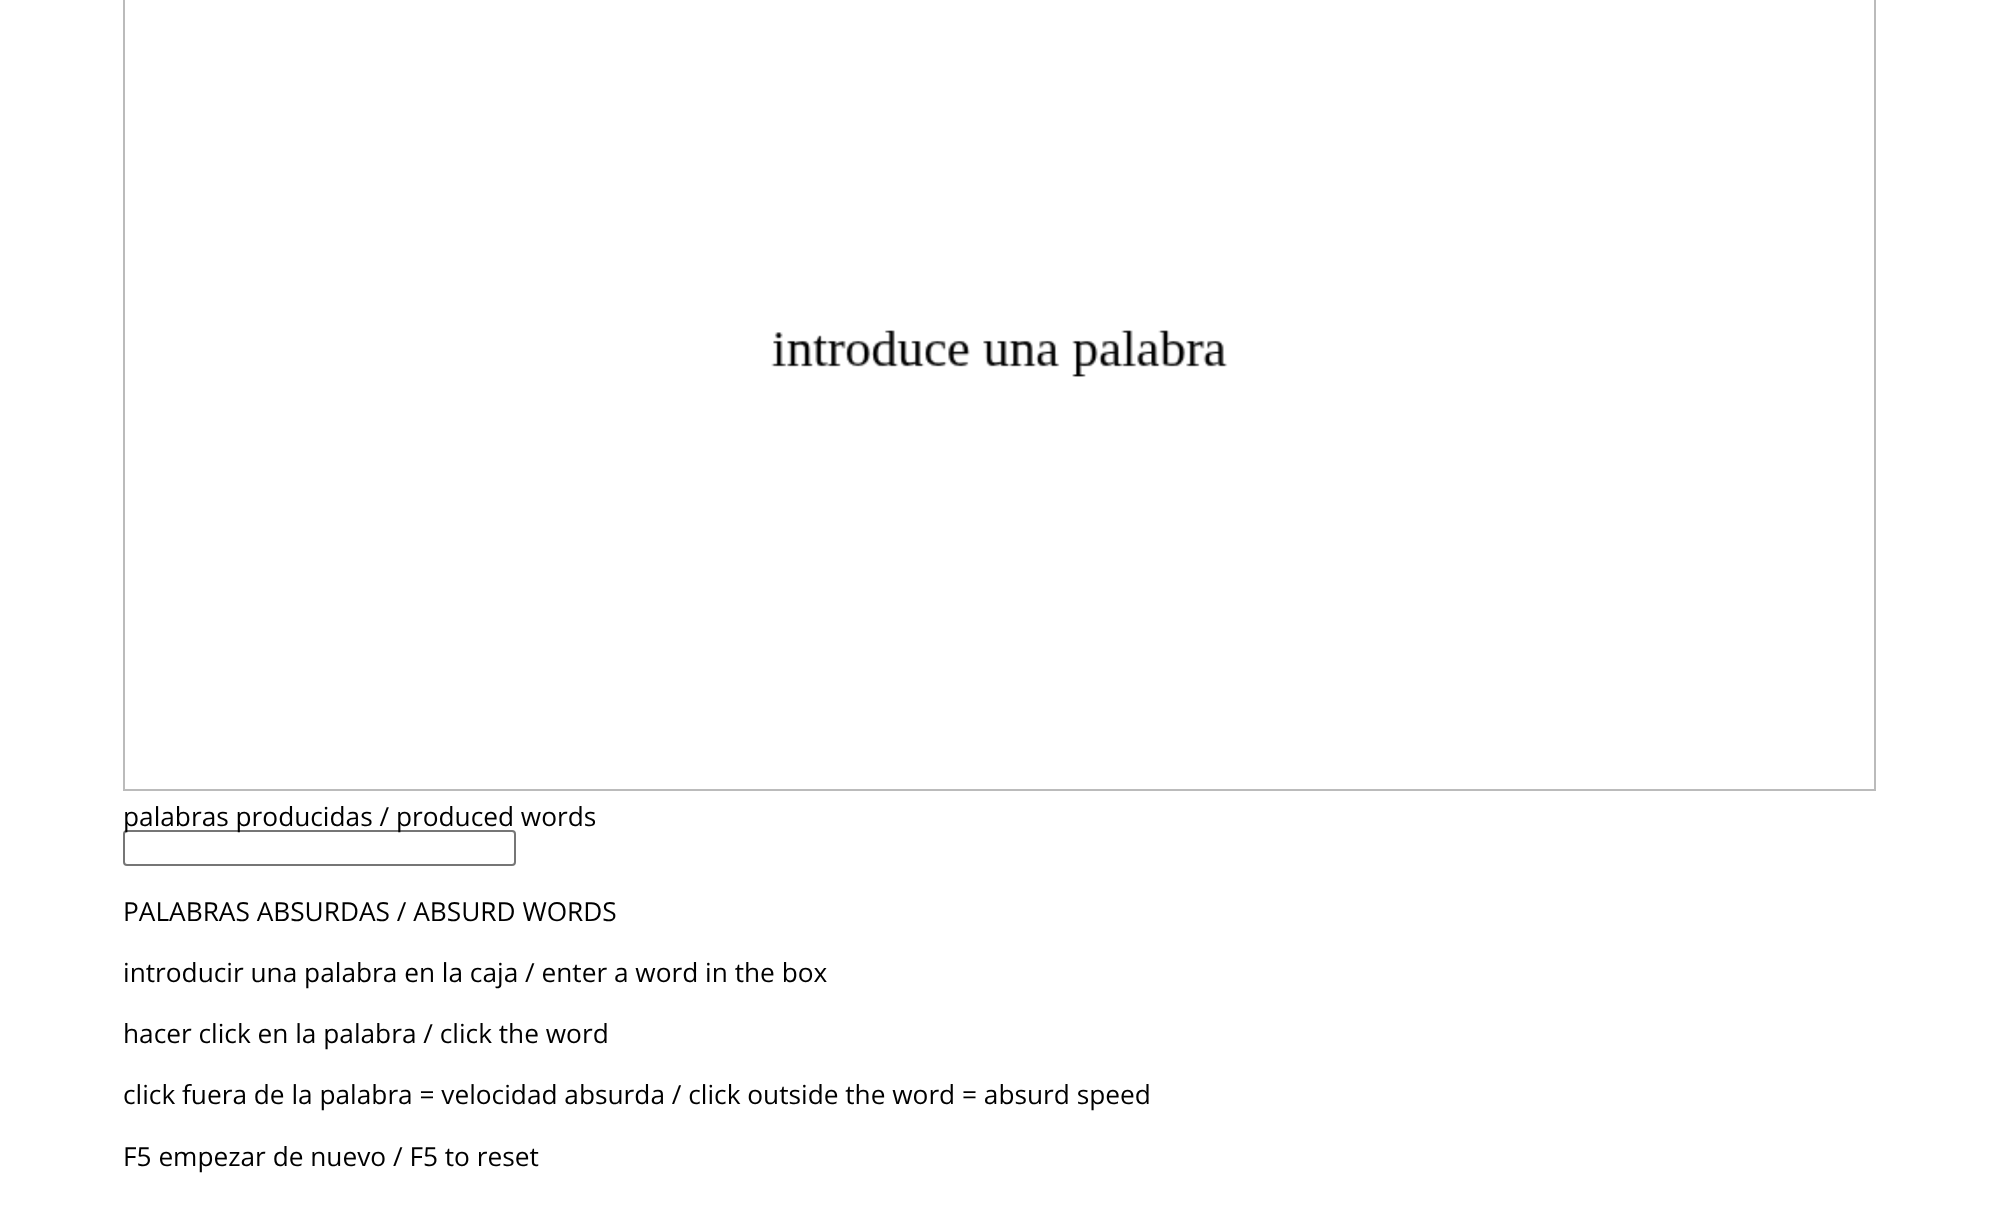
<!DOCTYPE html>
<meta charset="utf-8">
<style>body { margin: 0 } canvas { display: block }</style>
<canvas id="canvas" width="1994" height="1232"></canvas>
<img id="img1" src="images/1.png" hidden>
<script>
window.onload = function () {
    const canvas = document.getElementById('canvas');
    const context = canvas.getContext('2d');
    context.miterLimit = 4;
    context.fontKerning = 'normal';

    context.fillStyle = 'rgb(255, 255, 255)';
    context.fillRect(0, 0, 1994, 1232);
    context.strokeStyle = 'rgb(187, 187, 187)';
    context.lineWidth = 2;
    context.strokeRect(124, -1, 1751, 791);
    context.drawImage(document.getElementById('img1'), 771, 330, 457, 47);
    context.beginPath();
    context.roundRect(124, 831, 391, 34, 3);
    context.strokeStyle = 'rgb(118, 118, 118)';
    context.stroke();
    context.font = '26.25px Open Sans';
    context.fillStyle = 'rgb(0, 0, 0)';
    context.fillText('palabras producidas / produced words', 123, 826);
    context.fillText('PALABRAS ABSURDAS / ABSURD WORDS', 123, 921);
    context.fillText('introducir una palabra en la caja / enter a word in the box', 123, 982);
    context.fillText('hacer click en la palabra / click the word', 123, 1043);
    context.fillText('click fuera de la palabra = velocidad absurda / click outside the word = absurd speed', 123, 1104);
    context.fillText('F5 empezar de nuevo / F5 to reset', 123, 1166);
};
</script>
